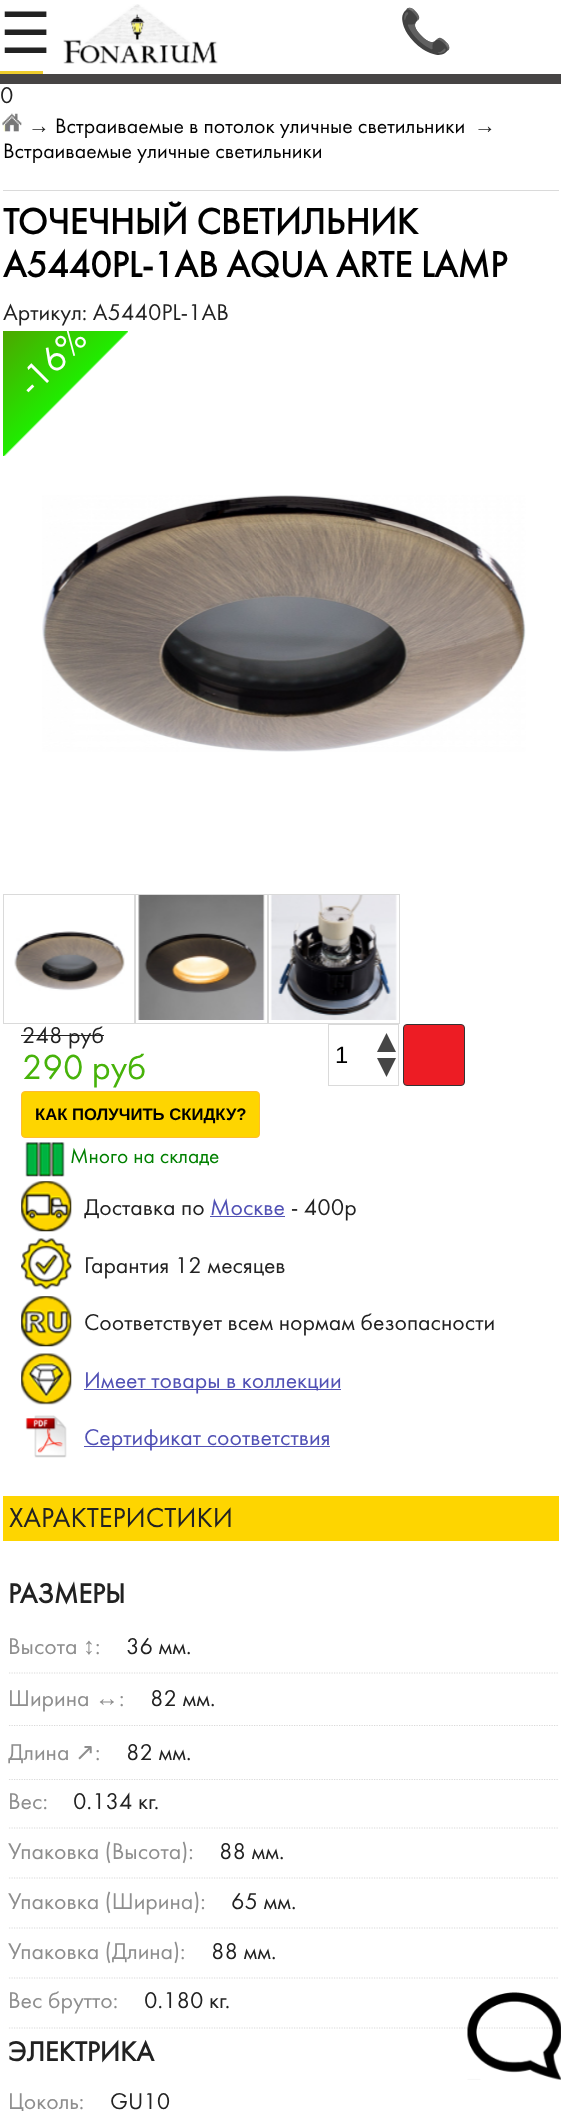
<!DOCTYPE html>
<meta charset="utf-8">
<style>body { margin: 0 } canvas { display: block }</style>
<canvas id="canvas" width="561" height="2111"></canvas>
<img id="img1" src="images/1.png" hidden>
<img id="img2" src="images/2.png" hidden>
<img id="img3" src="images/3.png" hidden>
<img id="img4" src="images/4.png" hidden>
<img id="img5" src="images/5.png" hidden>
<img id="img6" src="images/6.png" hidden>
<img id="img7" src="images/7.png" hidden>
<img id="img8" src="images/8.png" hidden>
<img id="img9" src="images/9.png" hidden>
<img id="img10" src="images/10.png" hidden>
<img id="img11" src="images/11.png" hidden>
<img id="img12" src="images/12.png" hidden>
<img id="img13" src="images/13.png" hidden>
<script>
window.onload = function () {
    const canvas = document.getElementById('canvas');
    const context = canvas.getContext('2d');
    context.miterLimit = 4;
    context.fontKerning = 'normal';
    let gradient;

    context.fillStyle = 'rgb(255, 255, 255)';
    context.fillRect(0, 0, 561, 2111);
    context.fillStyle = 'rgb(70, 68, 68)';
    context.fillRect(0, 74, 561, 10);
    context.fillStyle = 'rgb(238, 205, 45)';
    context.fillRect(0, 71, 43, 3);
    context.drawImage(document.getElementById('img1'), 63, 4, 155, 60);
    context.drawImage(document.getElementById('img2'), 2, 113, 20, 19);
    context.fillStyle = 'rgb(218, 218, 218)';
    context.fillRect(3, 190, 556, 1);
    gradient = context.createLinearGradient(2.5, 331, 128, 456);
    gradient.addColorStop(0.01, 'rgb(76, 168, 0)');
    gradient.addColorStop(0.5, 'rgb(32, 236, 0)');
    gradient.addColorStop(0.51, 'rgb(255, 255, 255)');
    gradient.addColorStop(0.54, 'rgb(255, 255, 255)');
    context.fillStyle = gradient;
    context.fillRect(3, 331, 125, 125);
    context.drawImage(document.getElementById('img3'), 42, 495, 484, 257);
    context.strokeStyle = 'rgb(218, 218, 218)';
    context.strokeRect(3.5, 894.5, 131, 129);
    context.drawImage(document.getElementById('img4'), 14, 931, 111, 60);
    context.strokeRect(135.5, 894.5, 132, 129);
    context.drawImage(document.getElementById('img5'), 138, 895, 127, 125);
    context.strokeRect(268.5, 894.5, 131, 129);
    context.drawImage(document.getElementById('img6'), 270, 895, 127, 125);
    context.fillStyle = 'rgb(34, 34, 34)';
    context.fillRect(21, 1035, 83, 1);
    context.fillStyle = 'rgb(254, 213, 0)';
    context.beginPath();
    context.roundRect(21.5, 1091.5, 238, 46, 3.5);
    context.fill();
    context.strokeStyle = 'rgb(255, 187, 49)';
    context.stroke();
    context.drawImage(document.getElementById('img7'), 25, 1142, 40, 35);
    context.strokeStyle = 'rgb(218, 218, 218)';
    context.strokeRect(328.5, 1024.5, 70, 61);
    context.fillStyle = 'rgb(70, 70, 70)';
    context.beginPath();
    context.moveTo(386.5, 1033);
    context.lineTo(396, 1052);
    context.lineTo(377, 1052);
    context.closePath();
    context.moveTo(386.5, 1077);
    context.lineTo(396, 1058);
    context.lineTo(377, 1058);
    context.closePath();
    context.fill();
    context.fillStyle = 'rgb(237, 28, 36)';
    context.beginPath();
    context.roundRect(403.5, 1024.5, 61, 61, 3.5);
    context.fill();
    context.strokeStyle = 'rgb(51, 51, 51)';
    context.stroke();
    context.drawImage(document.getElementById('img8'), 21, 1181, 51, 51);
    context.fillStyle = 'rgb(81, 81, 181)';
    context.fillRect(210, 1216, 75, 1);
    context.drawImage(document.getElementById('img9'), 21, 1238, 51, 52);
    context.drawImage(document.getElementById('img10'), 21, 1296, 51, 51);
    context.drawImage(document.getElementById('img11'), 21, 1353, 51, 52);
    context.fillRect(84, 1389, 257, 1);
    context.drawImage(document.getElementById('img12'), 25, 1415, 42, 43);
    context.fillRect(84, 1446, 246, 1);
    context.fillStyle = 'rgb(254, 213, 0)';
    context.fillRect(3, 1496, 556, 45);
    context.save();
    context.beginPath();
    context.rect(3, 1469, 556, 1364);
    context.clip();
    context.beginPath();
    context.moveTo(9, 1673);
    context.lineTo(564, 1673);
    context.strokeStyle = 'rgb(218, 218, 218)';
    context.lineWidth = 1.2;
    context.setLineDash([1.25, 1.25]);
    context.stroke();
    context.beginPath();
    context.moveTo(9, 1725.5);
    context.lineTo(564, 1725.5);
    context.stroke();
    context.beginPath();
    context.moveTo(9, 1779.5);
    context.lineTo(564, 1779.5);
    context.stroke();
    context.beginPath();
    context.moveTo(9, 1828);
    context.lineTo(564, 1828);
    context.stroke();
    context.beginPath();
    context.moveTo(9, 1878);
    context.lineTo(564, 1878);
    context.stroke();
    context.beginPath();
    context.moveTo(9, 1928);
    context.lineTo(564, 1928);
    context.stroke();
    context.beginPath();
    context.moveTo(9, 1978);
    context.lineTo(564, 1978);
    context.stroke();
    context.restore();
    context.beginPath();
    context.moveTo(9, 2028);
    context.lineTo(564, 2028);
    context.strokeStyle = 'rgb(218, 218, 218)';
    context.lineWidth = 1.2;
    context.setLineDash([1.25, 1.25]);
    context.stroke();
    context.drawImage(document.getElementById('img13'), 467, 1992, 94, 88);
    context.font = '57px DejaVu Sans';
    context.fillStyle = 'rgb(34, 34, 34)';
    context.fillText('☰', 0, 53);
    context.font = '43px Noto Color Emoji';
    context.fillStyle = 'rgb(0, 0, 0)';
    context.fillText('📞', 399, 46);
    context.font = '23.75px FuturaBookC';
    context.fillStyle = 'rgb(34, 34, 34)';
    context.fillText('0', 0, 103);
    context.font = '21.8px Liberation Serif';
    context.fillText('→', 28, 133);
    context.font = '21.8px FuturaBookC';
    context.fillStyle = 'rgb(0, 0, 0)';
    context.fillText('Встраиваемые в потолок уличные светильники', 55, 133);
    context.font = '21.8px Liberation Serif';
    context.fillStyle = 'rgb(34, 34, 34)';
    context.fillText('→', 474, 133);
    context.font = '21.8px FuturaBookC';
    context.fillStyle = 'rgb(0, 0, 0)';
    context.fillText('Встраиваемые уличные светильники', 3, 158);
    context.font = 'bold 37.5px FuturaBookC';
    context.fillText('ТОЧЕЧНЫЙ СВЕТИЛЬНИК', 3, 234);
    context.fillText('A5440PL-1AB AQUA ARTE LAMP', 3, 277);
    context.font = '23.75px FuturaBookC';
    context.fillStyle = 'rgb(34, 34, 34)';
    context.fillText('Артикул: A5440PL-1AB', 3, 320);
    context.font = '37.5px FuturaBookC';
    context.fillStyle = 'rgb(255, 255, 255)';
    context.save();
    context.translate(32, 398);
    context.rotate(-45 * Math.PI / 180);
    context.fillText('-16%', 0, 0);
    context.restore();
    context.font = '23.75px FuturaBookC';
    context.fillStyle = 'rgb(34, 34, 34)';
    context.fillText('248 руб', 22, 1043);
    context.font = '36px FuturaBookC';
    context.fillStyle = 'rgb(71, 179, 10)';
    context.fillText('290 руб', 22, 1079);
    context.font = 'bold 16.7px Liberation Sans';
    context.fillStyle = 'rgb(0, 0, 0)';
    context.fillText('КАК ПОЛУЧИТЬ СКИДКУ?', 35, 1120);
    context.font = '21.5px FuturaBookC';
    context.fillStyle = 'rgb(0, 128, 0)';
    context.fillText('Много на складе', 70, 1163);
    context.font = '23.75px Liberation Sans';
    context.fillStyle = 'rgb(0, 0, 0)';
    context.fillText('1', 335, 1063);
    context.font = '23.75px FuturaBookC';
    context.fillStyle = 'rgb(34, 34, 34)';
    context.fillText('Доставка по', 84, 1215);
    context.fillStyle = 'rgb(81, 81, 181)';
    context.fillText('Москве', 210, 1215);
    context.fillStyle = 'rgb(34, 34, 34)';
    context.fillText('- 400р', 291, 1215);
    context.fillText('Гарантия 12 месяцев', 84, 1273);
    context.fillText('Соответствует всем нормам безопасности', 84, 1330);
    context.fillStyle = 'rgb(81, 81, 181)';
    context.fillText('Имеет товары в коллекции', 84, 1388);
    context.fillText('Сертификат соответствия', 84, 1445);
    context.font = '28.5px FuturaBookC';
    context.fillStyle = 'rgb(34, 34, 34)';
    context.fillText('ХАРАКТЕРИСТИКИ', 9, 1527);
    context.font = 'bold 28.5px FuturaBookC';
    context.fillText('РАЗМЕРЫ', 8, 1603);
    context.font = '23.75px FuturaBookC';
    context.fillStyle = 'rgb(142, 142, 142)';
    context.fillText('Высота', 8, 1654);
    context.font = '23.75px Liberation Serif';
    context.fillText('↕', 83, 1654);
    context.font = '23.75px FuturaBookC';
    context.fillText(':', 95, 1654);
    context.fillStyle = 'rgb(34, 34, 34)';
    context.fillText('36 мм.', 126, 1654);
    context.fillStyle = 'rgb(142, 142, 142)';
    context.fillText('Ширина', 8, 1706);
    context.font = '23.75px Liberation Serif';
    context.fillText('↔', 95, 1706);
    context.font = '23.75px FuturaBookC';
    context.fillText(':', 119, 1706);
    context.fillStyle = 'rgb(34, 34, 34)';
    context.fillText('82 мм.', 150, 1706);
    context.fillStyle = 'rgb(142, 142, 142)';
    context.fillText('Длина', 8, 1760);
    context.font = '23.75px DejaVu Sans';
    context.fillText('↗', 75, 1760);
    context.font = '23.75px FuturaBookC';
    context.fillText(':', 95, 1760);
    context.fillStyle = 'rgb(34, 34, 34)';
    context.fillText('82 мм.', 126, 1760);
    context.fillStyle = 'rgb(142, 142, 142)';
    context.fillText('Вес:', 8, 1809);
    context.fillStyle = 'rgb(34, 34, 34)';
    context.fillText('0.134 кг.', 73, 1809);
    context.fillStyle = 'rgb(142, 142, 142)';
    context.fillText('Упаковка (Высота):', 8, 1859);
    context.fillStyle = 'rgb(34, 34, 34)';
    context.fillText('88 мм.', 219, 1859);
    context.fillStyle = 'rgb(142, 142, 142)';
    context.fillText('Упаковка (Ширина):', 8, 1909);
    context.fillStyle = 'rgb(34, 34, 34)';
    context.fillText('65 мм.', 231, 1909);
    context.fillStyle = 'rgb(142, 142, 142)';
    context.fillText('Упаковка (Длина):', 8, 1959);
    context.fillStyle = 'rgb(34, 34, 34)';
    context.fillText('88 мм.', 211, 1959);
    context.fillStyle = 'rgb(142, 142, 142)';
    context.fillText('Вес брутто:', 8, 2008);
    context.fillStyle = 'rgb(34, 34, 34)';
    context.fillText('0.180 кг.', 144, 2008);
    context.font = 'bold 28.5px FuturaBookC';
    context.fillText('ЭЛЕКТРИКА', 8, 2061);
    context.font = '23.75px FuturaBookC';
    context.fillStyle = 'rgb(142, 142, 142)';
    context.fillText('Цоколь:', 8, 2109);
    context.fillStyle = 'rgb(34, 34, 34)';
    context.fillText('GU10', 110, 2109);
};
</script>
